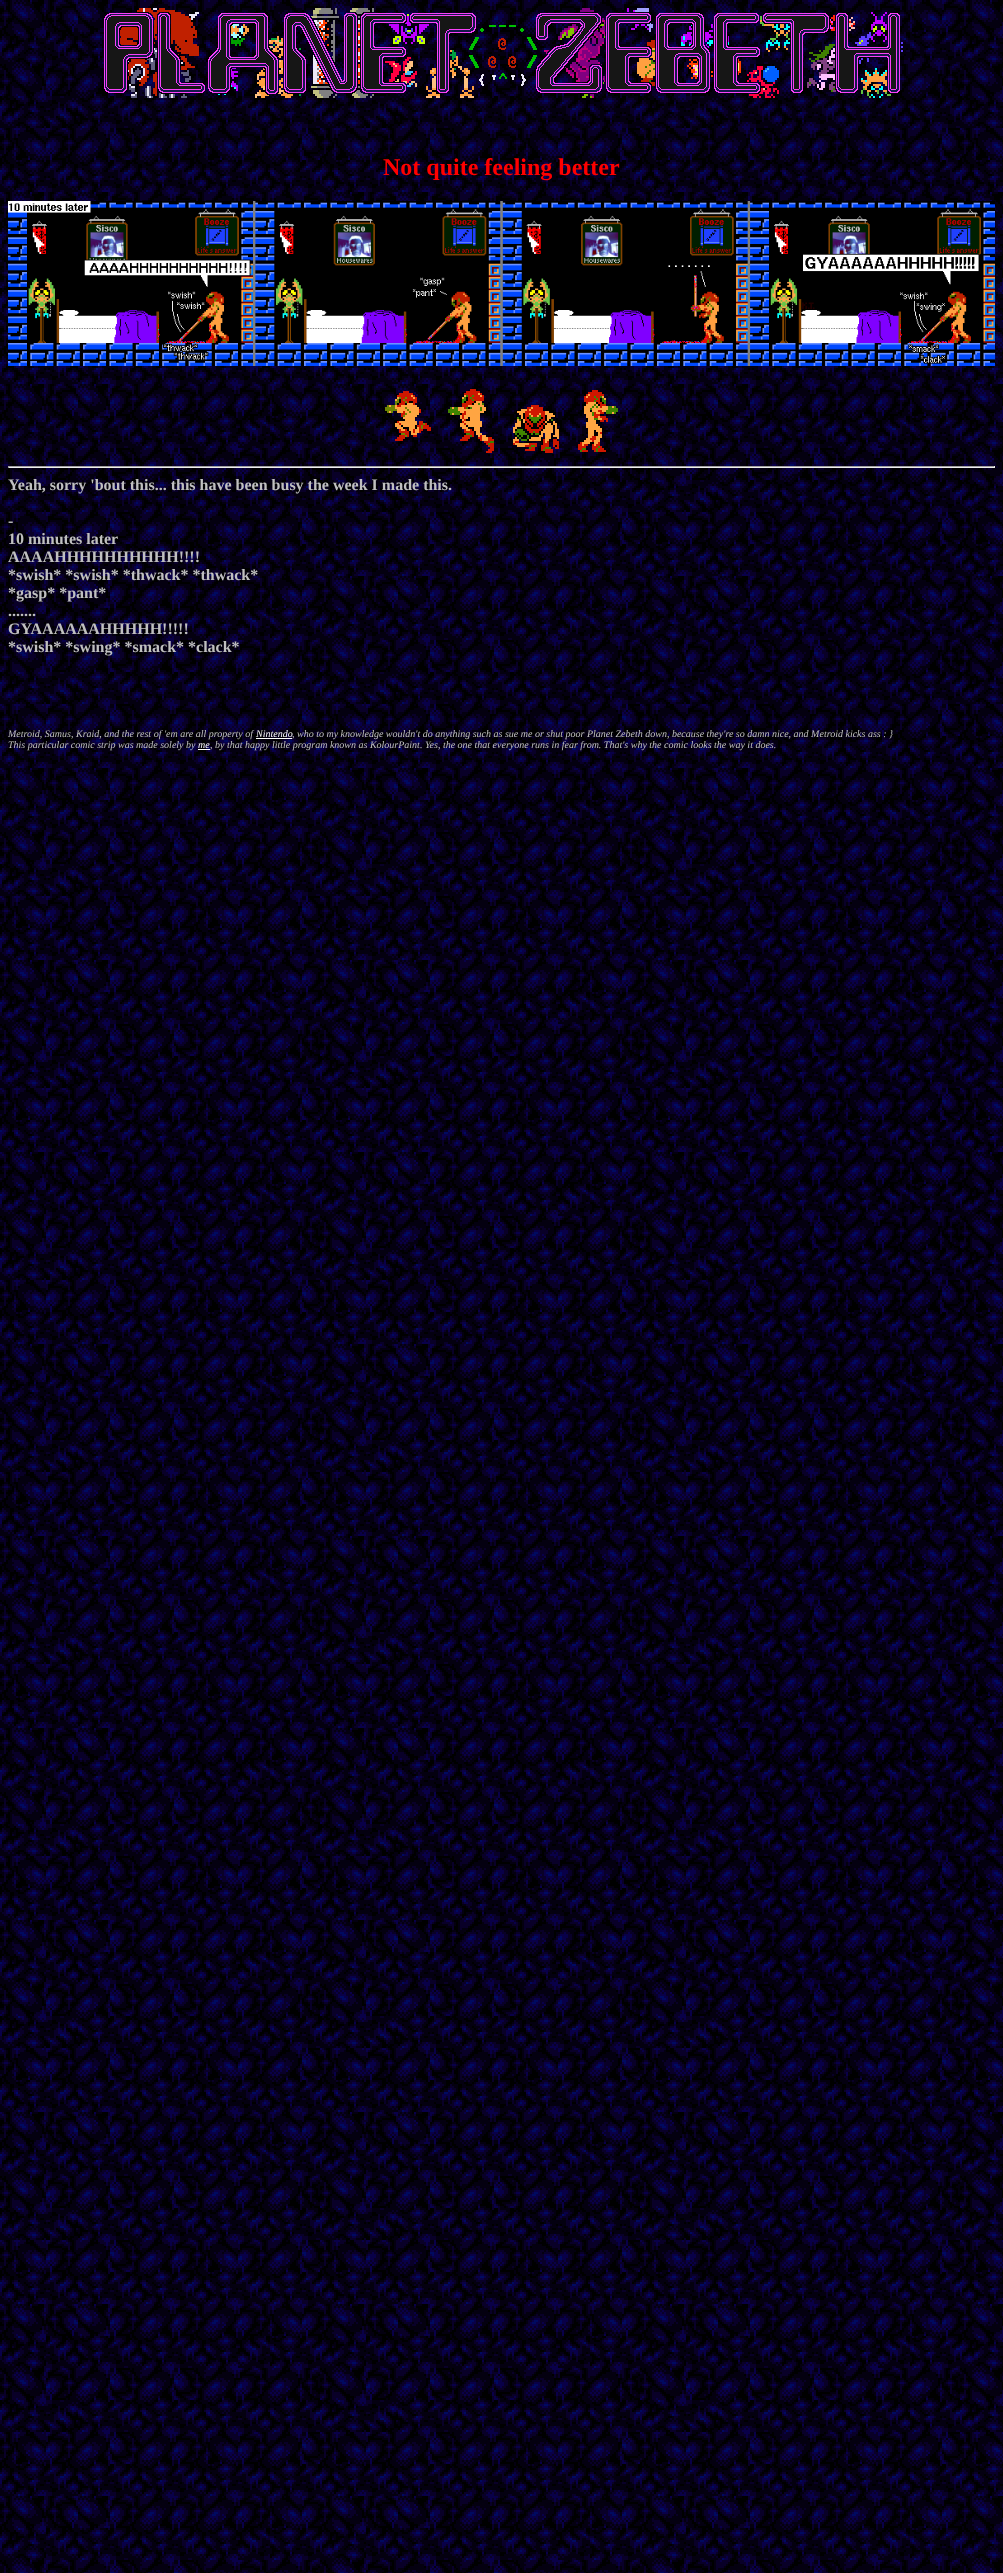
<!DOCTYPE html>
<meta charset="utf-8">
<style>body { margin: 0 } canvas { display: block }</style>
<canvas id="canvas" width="1003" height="2573"></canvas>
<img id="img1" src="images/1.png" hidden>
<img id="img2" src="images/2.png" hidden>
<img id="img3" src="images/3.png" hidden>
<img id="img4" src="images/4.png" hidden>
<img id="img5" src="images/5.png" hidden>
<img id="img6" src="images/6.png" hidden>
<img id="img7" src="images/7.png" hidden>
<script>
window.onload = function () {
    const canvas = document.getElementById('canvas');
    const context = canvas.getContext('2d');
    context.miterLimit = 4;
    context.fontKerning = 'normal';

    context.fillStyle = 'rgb(255, 255, 255)';
    context.fillRect(0, 0, 1003, 2573);
    context.drawImage(document.getElementById('img1'), 0, 0, 1003, 2573);
    context.drawImage(document.getElementById('img2'), 104, 8, 799, 90);
    context.drawImage(document.getElementById('img3'), 8, 201, 987, 165);
    context.drawImage(document.getElementById('img4'), 385, 391, 46, 50);
    context.drawImage(document.getElementById('img5'), 448, 389, 46, 64);
    context.drawImage(document.getElementById('img6'), 513, 405, 46, 48);
    context.drawImage(document.getElementById('img7'), 578, 390, 40, 62);
    context.fillStyle = 'rgb(159, 159, 159)';
    context.fillRect(8, 466, 987, 1);
    context.fillStyle = 'rgb(238, 238, 238)';
    context.fillRect(994, 466, 1, 2);
    context.fillRect(8, 467, 987, 1);
    context.fillStyle = 'rgb(159, 159, 159)';
    context.fillRect(8, 466, 1, 2);
    context.fillStyle = 'rgb(255, 255, 255)';
    context.fillRect(256, 738, 36, 1);
    context.fillRect(198, 749, 12, 1);
    context.font = 'bold 24px Liberation Serif';
    context.fillStyle = 'rgb(255, 0, 0)';
    context.fillText('Not quite feeling better', 383, 175);
    context.font = 'bold 16px Liberation Serif';
    context.fillStyle = 'rgb(192, 192, 192)';
    context.fillText('Yeah, sorry \'bout this... this have been busy the week I made this.', 8, 490);
    context.fillText('-', 8, 526);
    context.fillText('10 minutes later', 8, 544);
    context.fillText('AAAAHHHHHHHHHH!!!!', 8, 562);
    context.fillText('*swish* *swish* *thwack* *thwack*', 8, 580);
    context.fillText('*gasp* *pant*', 8, 598);
    context.fillText('.......', 8, 616);
    context.fillText('GYAAAAAAHHHHH!!!!!', 8, 634);
    context.fillText('*swish* *swing* *smack* *clack*', 8, 652);
    context.font = 'italic 10px Liberation Serif';
    context.fillText('Metroid, Samus, Kraid, and the rest of \'em are all property of', 8, 737);
    context.fillStyle = 'rgb(255, 255, 255)';
    context.fillText('Nintendo', 256, 737);
    context.fillStyle = 'rgb(192, 192, 192)';
    context.fillText(', who to my knowledge wouldn\'t do anything such as sue me or shut poor Planet Zebeth down, because they\'re so damn nice, and Metroid kicks ass : }', 292, 737);
    context.fillText('This particular comic strip was made solely by', 8, 748);
    context.fillStyle = 'rgb(255, 255, 255)';
    context.fillText('me', 198, 748);
    context.fillStyle = 'rgb(192, 192, 192)';
    context.fillText(', by that happy little program known as KolourPaint. Yes, the one that everyone runs in fear from. That\'s why the comic looks the way it does.', 210, 748);
};
</script>
